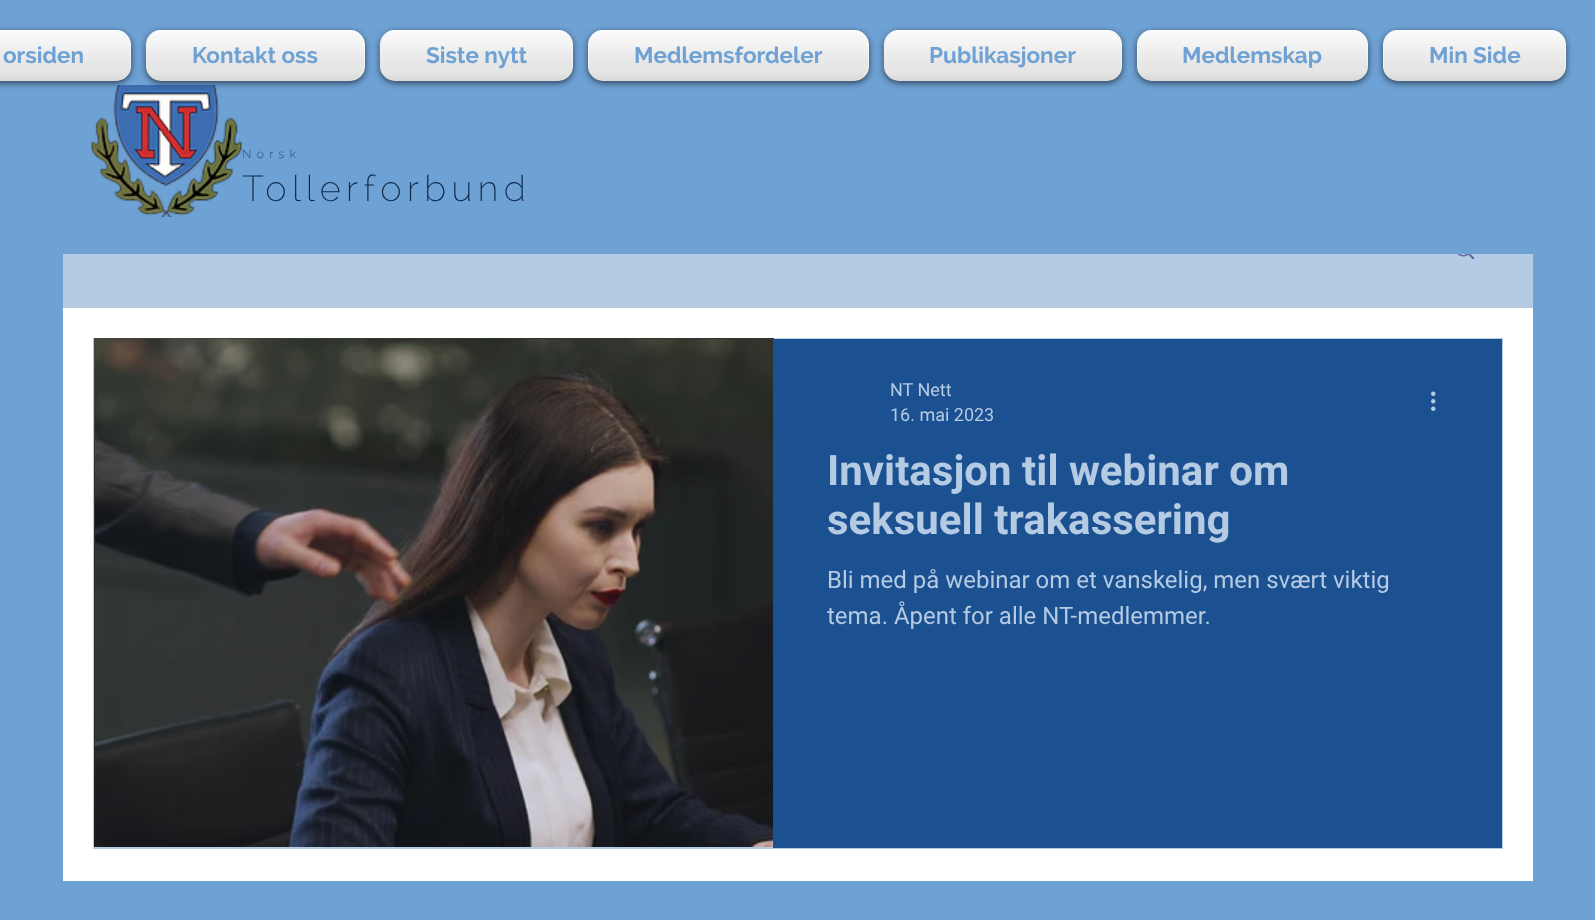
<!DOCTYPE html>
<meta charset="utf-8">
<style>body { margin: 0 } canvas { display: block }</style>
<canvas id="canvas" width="1595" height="920"></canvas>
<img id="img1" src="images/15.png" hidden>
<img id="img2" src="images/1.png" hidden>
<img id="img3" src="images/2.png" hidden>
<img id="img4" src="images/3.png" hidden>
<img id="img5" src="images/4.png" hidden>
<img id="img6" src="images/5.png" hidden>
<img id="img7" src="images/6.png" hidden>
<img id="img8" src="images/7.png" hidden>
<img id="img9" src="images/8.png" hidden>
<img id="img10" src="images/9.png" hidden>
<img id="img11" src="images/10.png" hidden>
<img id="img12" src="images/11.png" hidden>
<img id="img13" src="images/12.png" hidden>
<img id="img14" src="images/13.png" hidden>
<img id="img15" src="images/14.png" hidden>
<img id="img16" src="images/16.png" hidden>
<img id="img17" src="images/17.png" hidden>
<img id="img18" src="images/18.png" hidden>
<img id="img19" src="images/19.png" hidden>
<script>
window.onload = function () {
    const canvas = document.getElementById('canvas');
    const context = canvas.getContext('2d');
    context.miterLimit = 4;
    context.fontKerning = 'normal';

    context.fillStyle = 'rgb(110, 161, 212)';
    context.fillRect(0, 0, 1595, 920);
    context.drawImage(document.getElementById('img1'), 91, 85, 151, 132);
    context.fillStyle = 'rgba(0, 0, 0, 0.6)';
    context.filter = 'blur(3px)';
    context.beginPath();
    context.roundRect(-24, 32, 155, 51, 15);
    context.fill();
    context.filter = 'none';
    context.fillStyle = 'rgb(255, 255, 255)';
    context.beginPath();
    context.roundRect(-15, 30, 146, 51, 15);
    context.fill();
    context.drawImage(document.getElementById('img2'), 117, 30, 14, 13);
    context.drawImage(document.getElementById('img3'), 0, 31, 131, 50);
    context.fillStyle = 'rgba(0, 0, 0, 0.6)';
    context.filter = 'blur(3px)';
    context.beginPath();
    context.roundRect(146, 32, 219, 51, 15);
    context.fill();
    context.filter = 'none';
    context.fillStyle = 'rgb(255, 255, 255)';
    context.beginPath();
    context.roundRect(146, 30, 219, 51, 15);
    context.fill();
    context.drawImage(document.getElementById('img4'), 145, 30, 220, 49);
    context.drawImage(document.getElementById('img5'), 145, 31, 220, 50);
    context.fillStyle = 'rgba(0, 0, 0, 0.6)';
    context.filter = 'blur(3px)';
    context.beginPath();
    context.roundRect(380, 32, 193, 51, 15);
    context.fill();
    context.filter = 'none';
    context.fillStyle = 'rgb(255, 255, 255)';
    context.beginPath();
    context.roundRect(380, 30, 193, 51, 15);
    context.fill();
    context.drawImage(document.getElementById('img6'), 379, 30, 195, 49);
    context.drawImage(document.getElementById('img7'), 379, 31, 194, 50);
    context.fillStyle = 'rgba(0, 0, 0, 0.6)';
    context.filter = 'blur(3px)';
    context.beginPath();
    context.roundRect(588, 32, 281, 51, 15);
    context.fill();
    context.filter = 'none';
    context.fillStyle = 'rgb(255, 255, 255)';
    context.beginPath();
    context.roundRect(588, 30, 281, 51, 15);
    context.fill();
    context.drawImage(document.getElementById('img8'), 587, 30, 282, 45);
    context.drawImage(document.getElementById('img9'), 588, 31, 281, 50);
    context.fillStyle = 'rgba(0, 0, 0, 0.6)';
    context.filter = 'blur(3px)';
    context.beginPath();
    context.roundRect(884, 32, 238, 51, 15);
    context.fill();
    context.filter = 'none';
    context.fillStyle = 'rgb(255, 255, 255)';
    context.beginPath();
    context.roundRect(884, 30, 238, 51, 15);
    context.fill();
    context.drawImage(document.getElementById('img10'), 883, 30, 240, 49);
    context.drawImage(document.getElementById('img11'), 883, 31, 239, 50);
    context.fillStyle = 'rgba(0, 0, 0, 0.6)';
    context.filter = 'blur(3px)';
    context.beginPath();
    context.roundRect(1137, 32, 231, 51, 15);
    context.fill();
    context.filter = 'none';
    context.fillStyle = 'rgb(255, 255, 255)';
    context.beginPath();
    context.roundRect(1137, 30, 231, 51, 15);
    context.fill();
    context.drawImage(document.getElementById('img12'), 1136, 30, 233, 45);
    context.drawImage(document.getElementById('img13'), 1137, 31, 231, 50);
    context.fillStyle = 'rgba(0, 0, 0, 0.6)';
    context.filter = 'blur(3px)';
    context.beginPath();
    context.roundRect(1383, 32, 183, 51, 15);
    context.fill();
    context.filter = 'none';
    context.fillStyle = 'rgb(255, 255, 255)';
    context.beginPath();
    context.roundRect(1383, 30, 183, 51, 15);
    context.fill();
    context.drawImage(document.getElementById('img14'), 1382, 30, 185, 45);
    context.drawImage(document.getElementById('img15'), 1383, 31, 183, 50);
    context.fillStyle = 'rgb(255, 255, 254)';
    context.fillRect(63, 308, 1470, 573);
    context.fillStyle = 'rgb(181, 202, 227)';
    context.fillRect(63, 254, 1470, 54);
    context.drawImage(document.getElementById('img16'), 1457, 254, 18, 6);
    context.strokeStyle = 'rgb(181, 202, 227)';
    context.lineWidth = 2;
    context.strokeRect(94, 339, 1408, 509);
    context.drawImage(document.getElementById('img17'), 94, 338, 680, 509);
    context.drawImage(document.getElementById('img18'), 95, 339, 678, 508);
    context.fillStyle = 'rgb(27, 80, 145)';
    context.fillRect(773, 339, 729, 509);
    context.drawImage(document.getElementById('img19'), 1431, 391, 5, 20);
    context.font = 'bold 22.5px Raleway';
    context.fillStyle = 'rgb(110, 161, 212)';
    context.fillText('orsiden', 3, 63);
    context.fillText('Kontakt oss', 192, 63);
    context.fillText('Siste nytt', 426, 63);
    context.fillText('Medlemsfordeler', 634, 63);
    context.fillText('Publikasjoner', 929, 63);
    context.fillText('Medlemskap', 1182, 63);
    context.fillText('Min Side', 1429, 63);
    context.letterSpacing = '5.4px';
    context.font = '200 12px Raleway';
    context.fillStyle = 'rgb(14, 40, 73)';
    context.fillText('Norsk', 242, 158);
    context.font = '200 36px Raleway';
    context.fillText('Tollerforbund', 242, 201);
    context.letterSpacing = '0px';
    context.font = '18px Roboto';
    context.fillStyle = 'rgb(181, 202, 227)';
    context.fillText('NT Nett', 890, 396);
    context.fillText('16. mai 2023', 890, 421);
    context.font = 'bold 42px Roboto';
    context.fillText('Invitasjon til webinar om', 827, 485);
    context.fillText('seksuell trakassering', 827, 534);
    context.font = '24px Roboto';
    context.fillText('Bli med på webinar om et vanskelig, men svært viktig', 827, 588);
    context.fillText('tema. Åpent for alle NT-medlemmer.', 827, 624);
};
</script>
